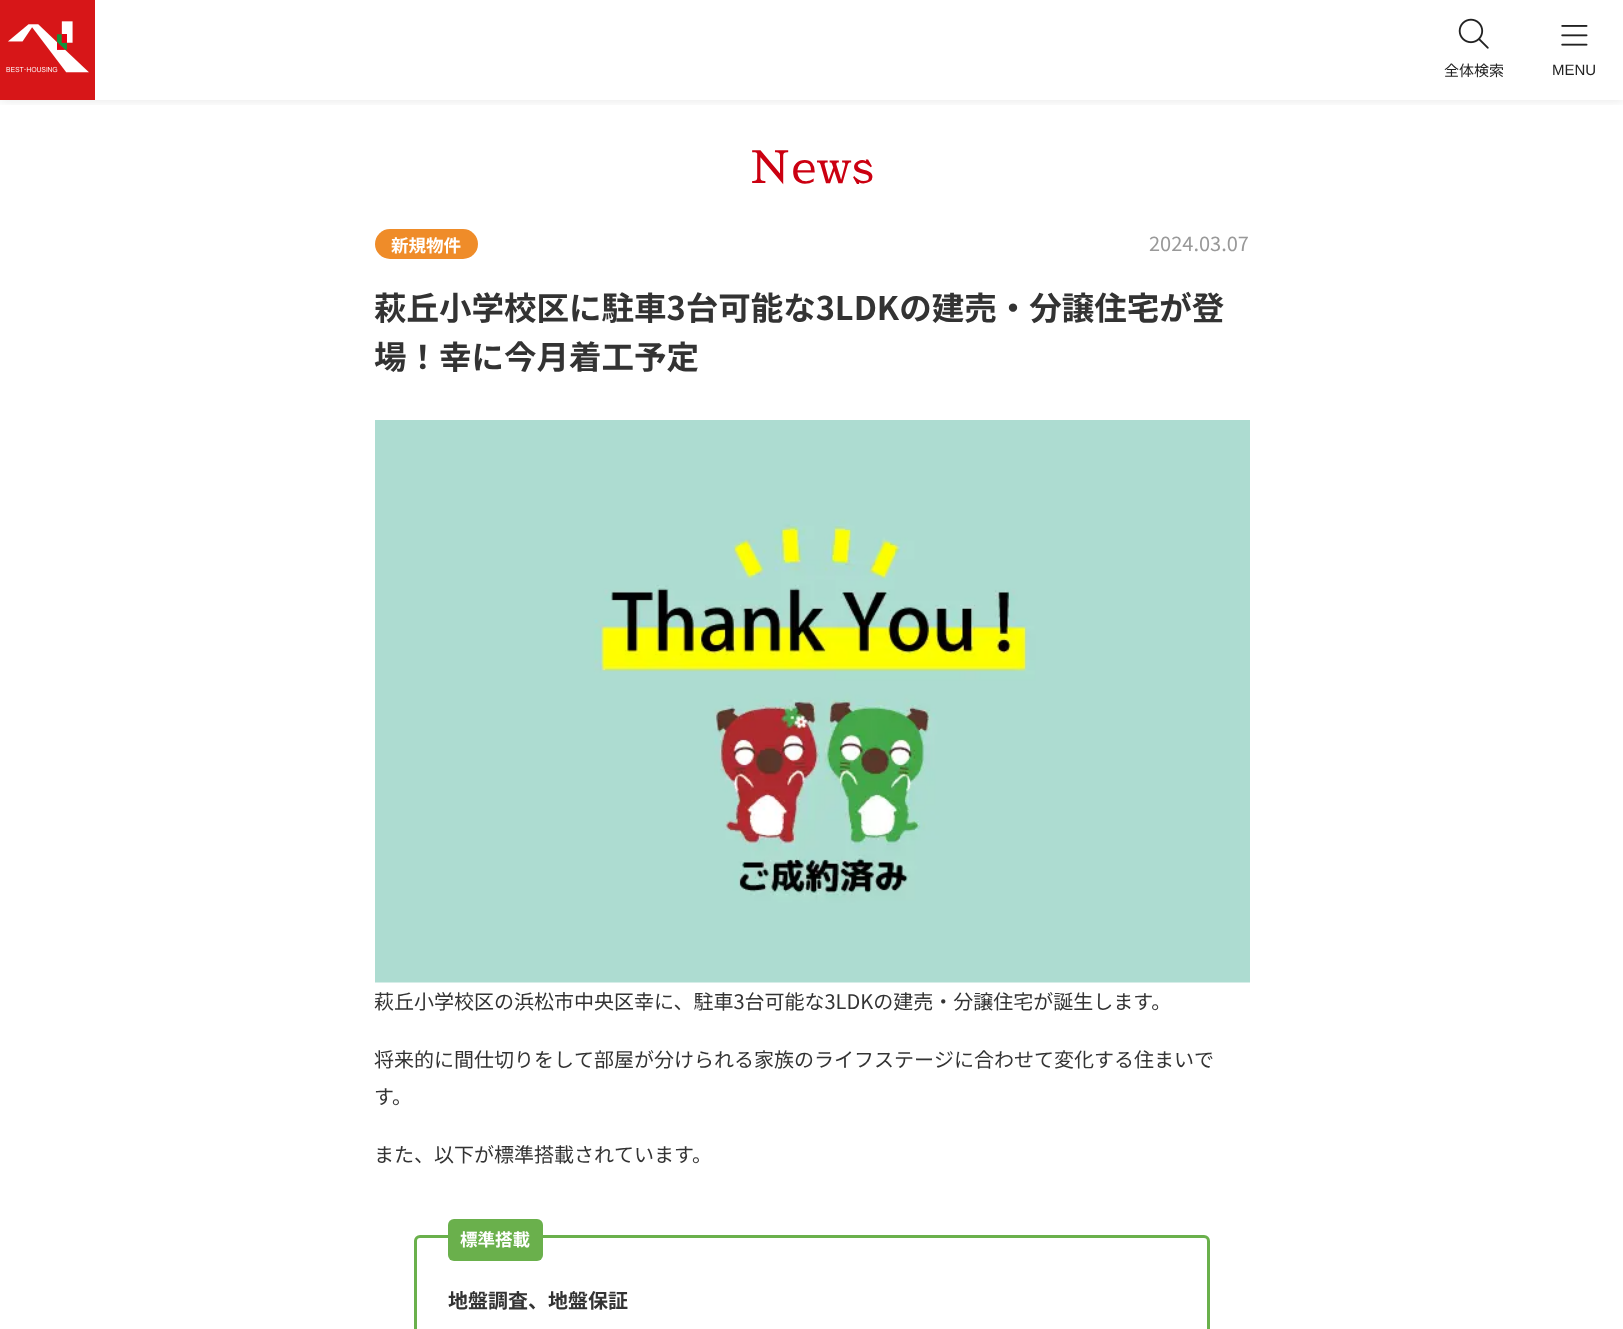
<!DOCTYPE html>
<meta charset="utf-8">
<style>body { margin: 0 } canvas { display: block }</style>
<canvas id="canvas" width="1623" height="1329"></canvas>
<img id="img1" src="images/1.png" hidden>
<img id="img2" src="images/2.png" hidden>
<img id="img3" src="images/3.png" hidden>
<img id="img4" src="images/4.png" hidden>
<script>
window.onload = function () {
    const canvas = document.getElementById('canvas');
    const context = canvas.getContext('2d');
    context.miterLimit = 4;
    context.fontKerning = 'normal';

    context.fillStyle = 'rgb(255, 255, 255)';
    context.fillRect(0, 0, 1623, 1329);
    context.save();
    context.beginPath();
    context.rect(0, 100, 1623, 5);
    context.clip();
    context.fillStyle = 'rgba(0, 0, 0, 0.1)';
    context.filter = 'blur(6px)';
    context.beginPath();
    context.rect(0, 0, 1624, 100);
    context.fill();
    context.filter = 'none';
    context.restore();
    context.fillStyle = 'rgb(215, 22, 24)';
    context.fillRect(0, 0, 95, 100);
    context.drawImage(document.getElementById('img1'), 6, 21, 83, 52);
    context.drawImage(document.getElementById('img2'), 1458, 18, 31, 31);
    context.drawImage(document.getElementById('img3'), 1561, 25, 27, 21);
    context.fillStyle = 'rgb(239, 140, 41)';
    context.beginPath();
    context.roundRect(375, 229, 103, 30, 15);
    context.fill();
    context.drawImage(document.getElementById('img4'), 375, 420, 875, 563);
    context.beginPath();
    context.roundRect(415.5, 1236.5, 793, 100, 4.5);
    context.strokeStyle = 'rgb(106, 176, 76)';
    context.lineWidth = 3;
    context.stroke();
    context.fillStyle = 'rgb(106, 176, 76)';
    context.beginPath();
    context.roundRect(448, 1219, 95, 42, 6);
    context.fill();
    context.font = '15px Noto Sans JP';
    context.fillStyle = 'rgb(34, 34, 34)';
    context.fillText('全体検索', 1444, 76);
    context.font = '15px Liberation Sans';
    context.fillText('MENU', 1552, 75);
    context.font = '45px Sawarabi Mincho';
    context.fillStyle = 'rgb(203, 0, 17)';
    context.fillText('News', 749, 183);
    context.font = 'bold 17.5px Noto Sans JP';
    context.fillStyle = 'rgb(255, 255, 255)';
    context.fillText('新規物件', 391, 252);
    context.font = '20px Noto Sans JP';
    context.fillStyle = 'rgb(153, 153, 153)';
    context.fillText('2024.03.07', 1149, 251);
    context.font = 'bold 32.5px Noto Sans JP';
    context.fillStyle = 'rgb(51, 51, 51)';
    context.fillText('萩丘小学校区に駐車3台可能な3LDKの建売・分譲住宅が登', 374, 320);
    context.fillText('場！幸に今月着工予定', 374, 369);
    context.font = '20px Noto Sans JP';
    context.fillText('萩丘小学校区の浜松市中央区幸に、駐車3台可能な3LDKの建売・分譲住宅が誕生します。', 374, 1009);
    context.fillText('将来的に間仕切りをして部屋が分けられる家族のライフステージに合わせて変化する住まいで', 374, 1067);
    context.fillText('す。', 374, 1104);
    context.fillText('また、以下が標準搭載されています。', 374, 1162);
    context.font = 'bold 17.5px Noto Sans JP';
    context.fillStyle = 'rgb(255, 255, 255)';
    context.fillText('標準搭載', 460, 1246);
    context.font = 'bold 20px Noto Sans JP';
    context.fillStyle = 'rgb(51, 51, 51)';
    context.fillText('地盤調査、地盤保証', 448, 1308);
};
</script>
